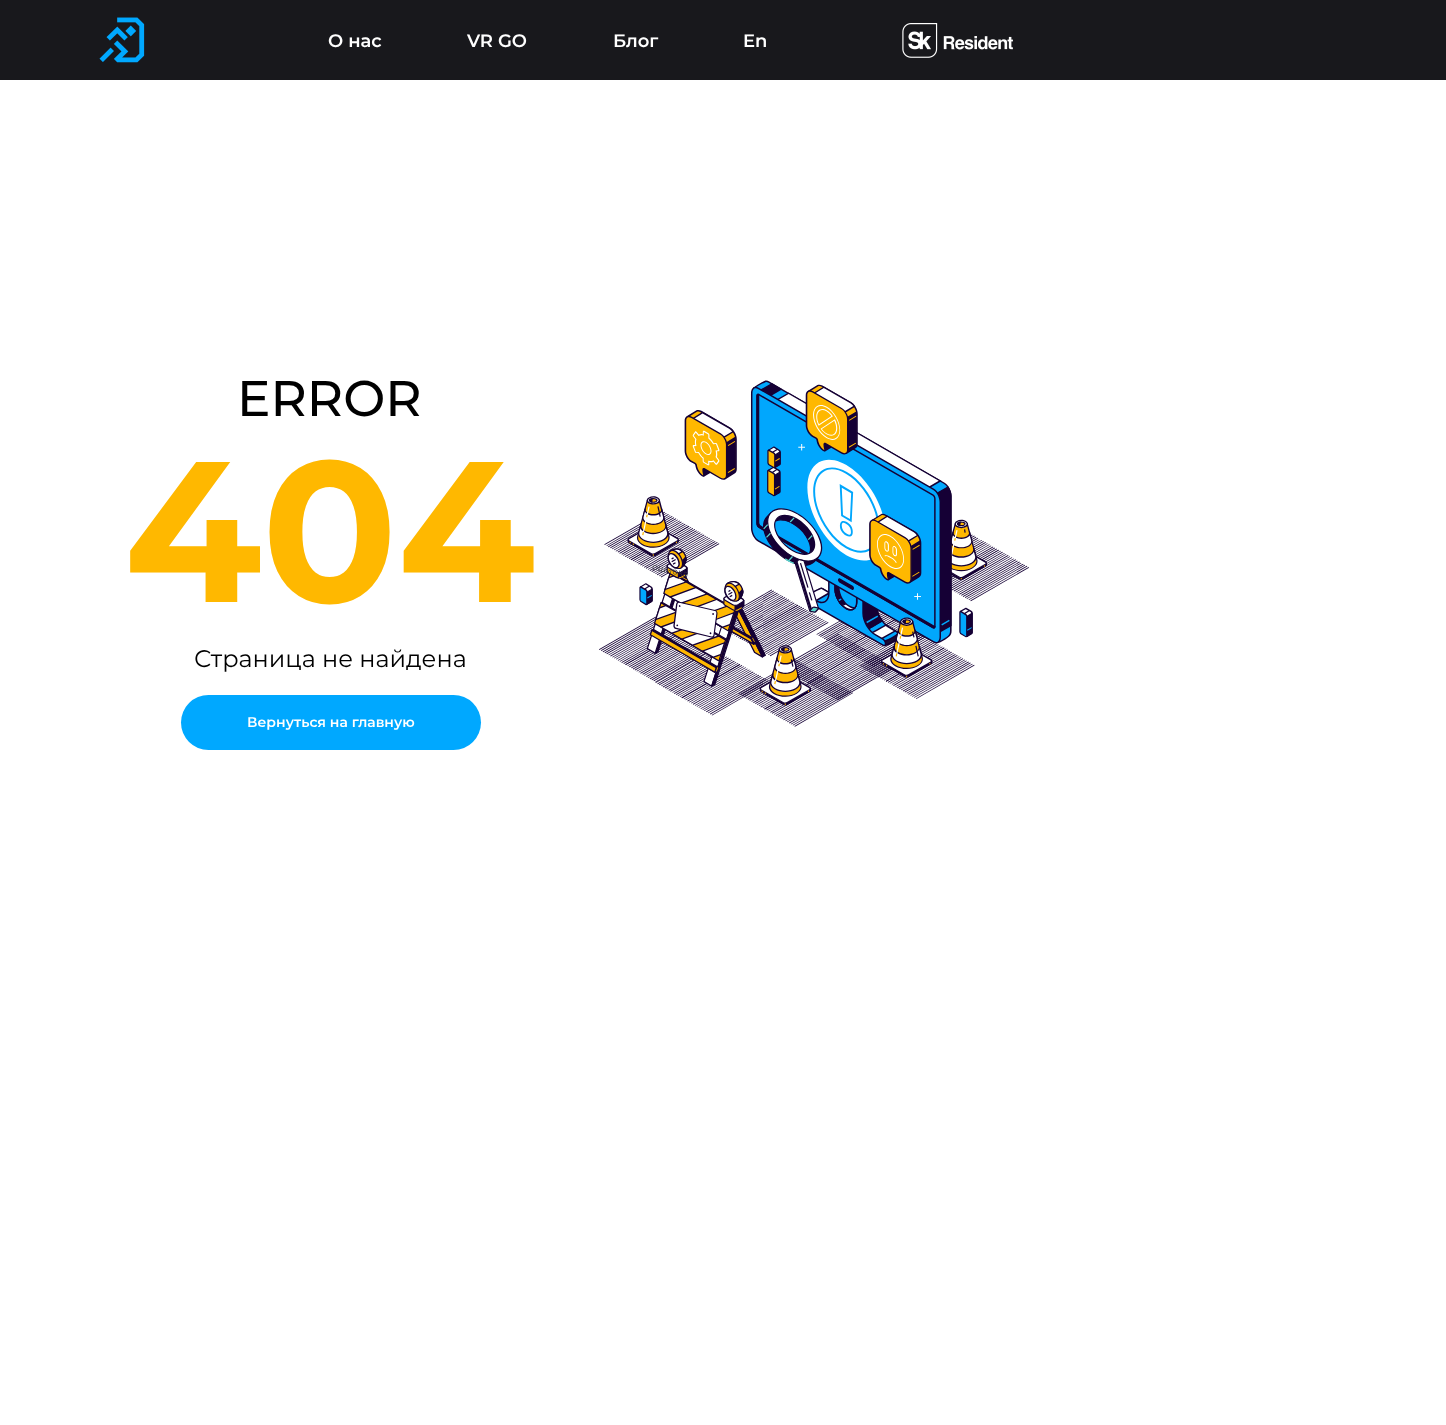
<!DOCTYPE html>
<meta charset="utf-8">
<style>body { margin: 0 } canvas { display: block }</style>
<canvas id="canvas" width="1446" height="1425"></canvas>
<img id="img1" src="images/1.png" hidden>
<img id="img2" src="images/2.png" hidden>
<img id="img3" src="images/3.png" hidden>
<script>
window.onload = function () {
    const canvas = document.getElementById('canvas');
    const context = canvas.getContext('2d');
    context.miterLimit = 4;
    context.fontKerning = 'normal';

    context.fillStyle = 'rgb(255, 255, 255)';
    context.fillRect(0, 0, 1446, 1425);
    context.fillStyle = 'rgb(24, 24, 28)';
    context.fillRect(0, 0, 1446, 80);
    context.drawImage(document.getElementById('img1'), 99, 17, 46, 46);
    context.drawImage(document.getElementById('img2'), 902, 23, 111, 35);
    context.drawImage(document.getElementById('img3'), 599, 380, 430, 347);
    context.fillStyle = 'rgb(0, 168, 255)';
    context.beginPath();
    context.roundRect(181, 695, 300, 55, 27.5);
    context.fill();
    context.font = '600 18px Montserrat';
    context.fillStyle = 'rgb(255, 255, 255)';
    context.fillText('О нас', 328, 47);
    context.fillText('VR GO', 467, 47);
    context.fillText('Блог', 613, 47);
    context.fillText('En', 743, 47);
    context.font = '500 50px Montserrat';
    context.fillStyle = 'rgb(0, 0, 0)';
    context.fillText('ERROR', 237, 416);
    context.font = 'bold 200px Montserrat';
    context.fillStyle = 'rgb(255, 184, 0)';
    context.fillText('404', 124, 602);
    context.font = '24px Montserrat';
    context.fillStyle = 'rgb(0, 0, 0)';
    context.fillText('Страница не найдена', 194, 667);
    context.font = '600 14px Montserrat';
    context.fillStyle = 'rgb(255, 255, 255)';
    context.fillText('Вернуться на главную', 247, 727);
};
</script>
